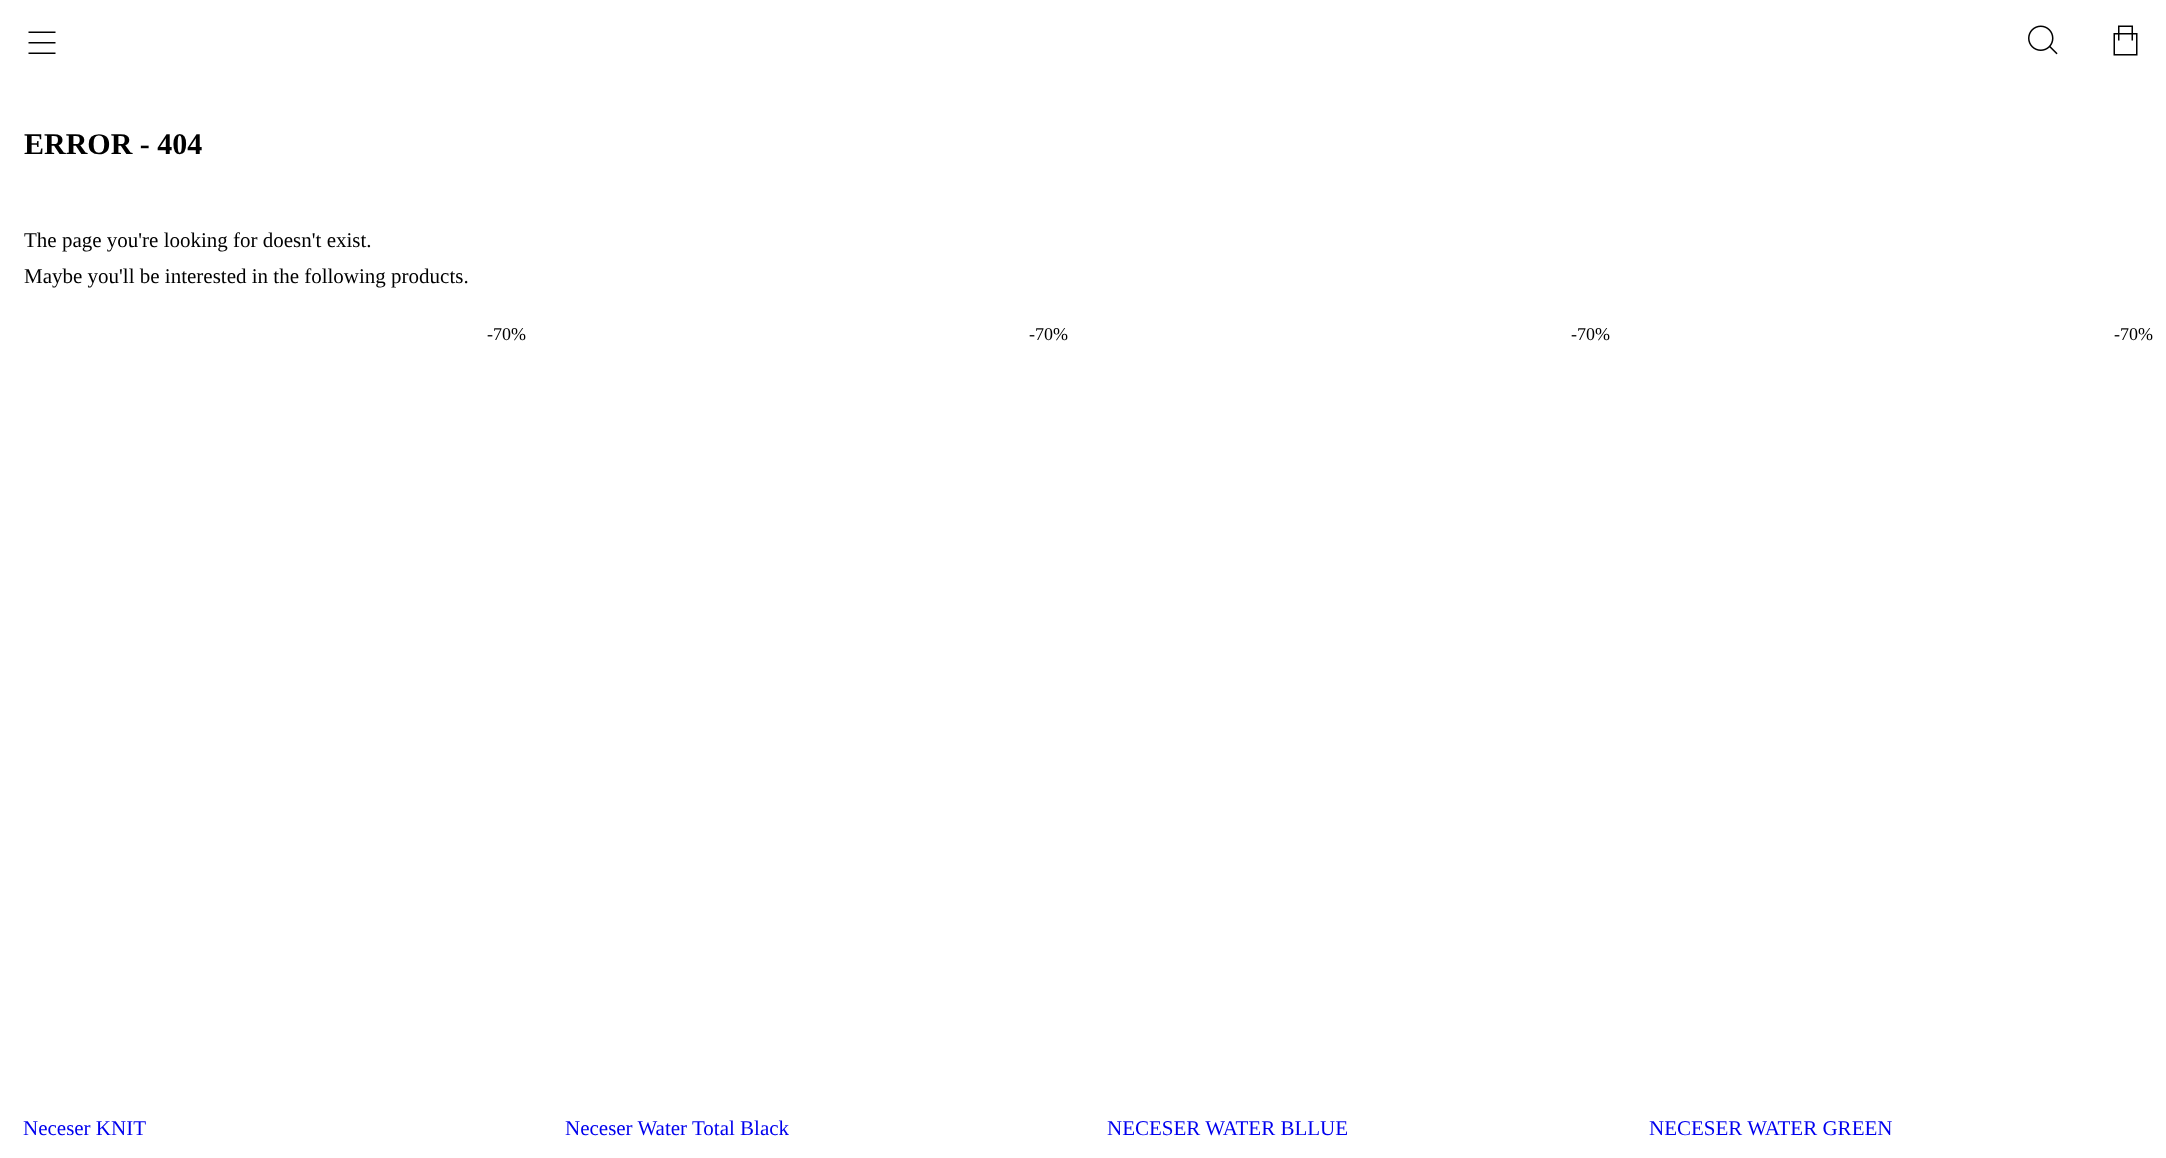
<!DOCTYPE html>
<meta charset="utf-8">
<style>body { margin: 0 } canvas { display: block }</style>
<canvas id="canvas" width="2166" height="1158"></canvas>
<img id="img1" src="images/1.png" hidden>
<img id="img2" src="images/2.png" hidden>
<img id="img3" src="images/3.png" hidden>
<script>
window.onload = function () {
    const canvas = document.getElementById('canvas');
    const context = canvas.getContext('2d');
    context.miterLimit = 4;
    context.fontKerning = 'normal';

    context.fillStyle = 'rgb(255, 255, 255)';
    context.fillRect(0, 0, 2166, 1158);
    context.drawImage(document.getElementById('img1'), 28, 31, 28, 23);
    context.drawImage(document.getElementById('img2'), 2028, 25, 30, 30);
    context.drawImage(document.getElementById('img3'), 2113, 25, 25, 31);
    context.font = 'bold 30px Liberation Serif';
    context.fillStyle = 'rgb(0, 0, 0)';
    context.fillText('ERROR - 404', 24, 154);
    context.font = '21px Liberation Serif';
    context.fillText('The page you\'re looking for doesn\'t exist.', 24, 247);
    context.fillText('Maybe you\'ll be interested in the following products.', 24, 283);
    context.font = '18px Liberation Serif';
    context.fillText('-70%', 487, 340);
    context.font = '21px Liberation Serif';
    context.fillStyle = 'rgb(0, 0, 238)';
    context.fillText('Neceser KNIT', 23, 1135);
    context.font = '18px Liberation Serif';
    context.fillStyle = 'rgb(0, 0, 0)';
    context.fillText('-70%', 1029, 340);
    context.font = '21px Liberation Serif';
    context.fillStyle = 'rgb(0, 0, 238)';
    context.fillText('Neceser Water Total Black', 565, 1135);
    context.font = '18px Liberation Serif';
    context.fillStyle = 'rgb(0, 0, 0)';
    context.fillText('-70%', 1571, 340);
    context.font = '21px Liberation Serif';
    context.fillStyle = 'rgb(0, 0, 238)';
    context.fillText('NECESER WATER BLLUE', 1107, 1135);
    context.font = '18px Liberation Serif';
    context.fillStyle = 'rgb(0, 0, 0)';
    context.fillText('-70%', 2114, 340);
    context.font = '21px Liberation Serif';
    context.fillStyle = 'rgb(0, 0, 238)';
    context.fillText('NECESER WATER GREEN', 1649, 1135);
};
</script>
